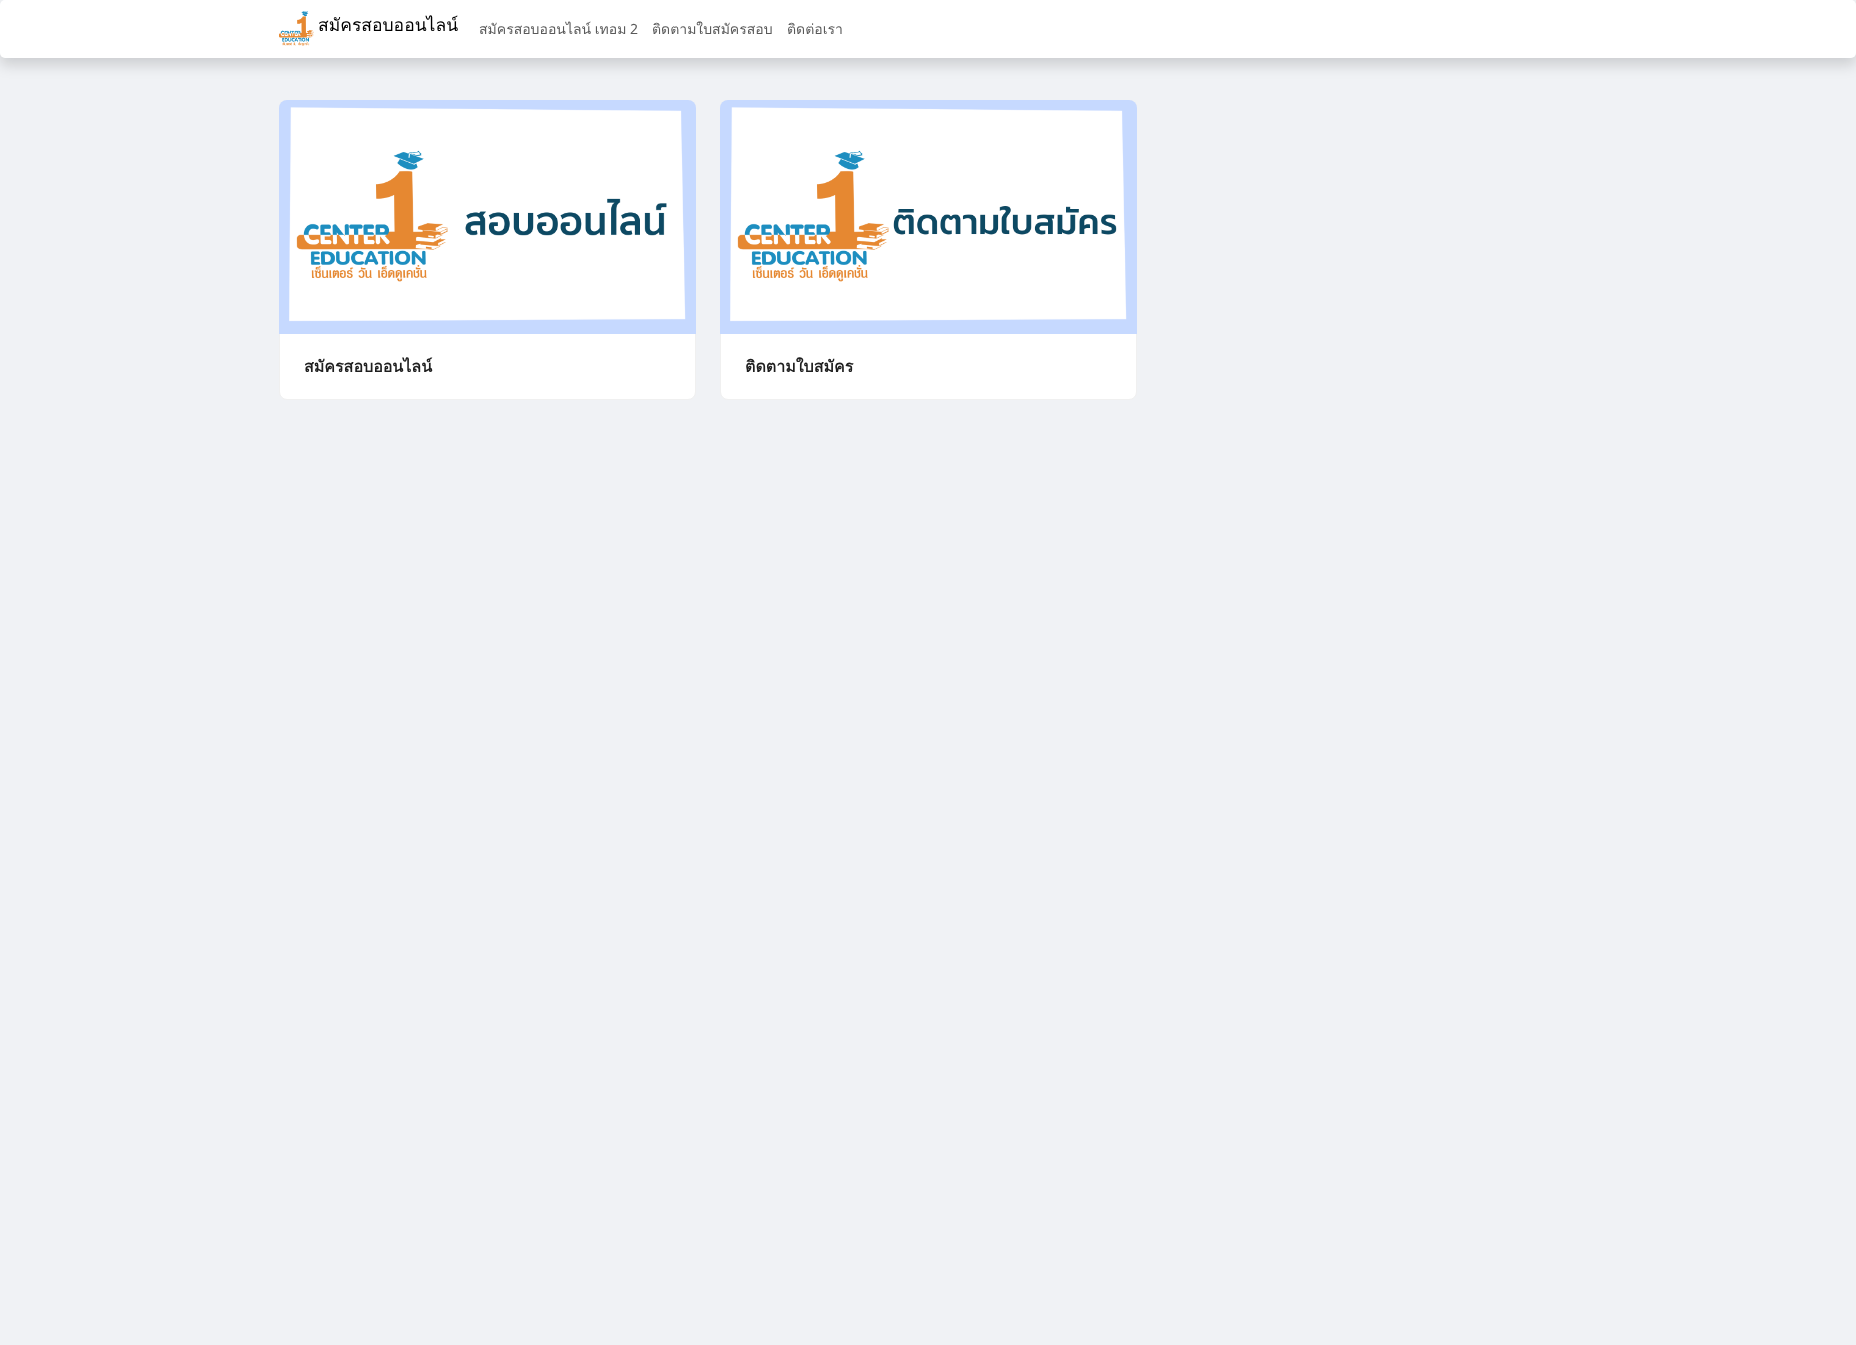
<!DOCTYPE html>
<meta charset="utf-8">
<style>body { margin: 0 } canvas { display: block }</style>
<canvas id="canvas" width="1856" height="1345"></canvas>
<img id="img1" src="images/1.png" hidden>
<img id="img2" src="images/2.png" hidden>
<img id="img3" src="images/3.png" hidden>
<script>
window.onload = function () {
    const canvas = document.getElementById('canvas');
    const context = canvas.getContext('2d');
    context.miterLimit = 4;
    context.fontKerning = 'normal';

    context.fillStyle = 'rgb(240, 242, 245)';
    context.fillRect(0, 0, 1856, 1345);
    context.fillStyle = 'rgba(0, 0, 0, 0.15)';
    context.filter = 'blur(7px)';
    context.beginPath();
    context.roundRect(0, 7, 1856, 58, 5);
    context.fill();
    context.filter = 'none';
    context.fillStyle = 'rgb(255, 255, 255)';
    context.beginPath();
    context.roundRect(0, 0, 1856, 58, 5);
    context.fill();
    context.drawImage(document.getElementById('img1'), 279, 11, 35, 35);
    context.beginPath();
    context.roundRect(279.5, 100.5, 416, 299, 7.5);
    context.fill();
    context.strokeStyle = 'rgb(240, 240, 240)';
    context.stroke();
    context.drawImage(document.getElementById('img2'), 279, 100, 417, 234);
    context.beginPath();
    context.roundRect(720.5, 100.5, 416, 299, 7.5);
    context.fill();
    context.stroke();
    context.drawImage(document.getElementById('img3'), 720, 100, 417, 234);
    context.font = '17.5px Loma';
    context.fillStyle = 'rgb(0, 0, 0)';
    context.fillText('สมัครสอบออนไลน์', 318, 31);
    context.wordSpacing = '-1px';
    context.font = '14px Loma';
    context.fillStyle = 'rgb(89, 89, 89)';
    context.fillText('สมัครสอบออนไลน์ เทอม', 479, 34);
    context.wordSpacing = '0px';
    context.font = '14px Noto Sans';
    context.fillText('2', 630, 34);
    context.font = '14px Loma';
    context.fillText('ติดตามใบสมัครสอบ', 652, 34);
    context.fillText('ติดต่อเรา', 787, 34);
    context.font = 'bold 16px Loma';
    context.fillStyle = 'rgb(31, 31, 31)';
    context.fillText('สมัครสอบออนไลน์', 304, 372);
    context.save();
    context.beginPath();
    context.rect(745, 354, 367, 25);
    context.clip();
    context.fillText('ติดตามใบสมัคร', 745, 372);
    context.restore();
};
</script>
